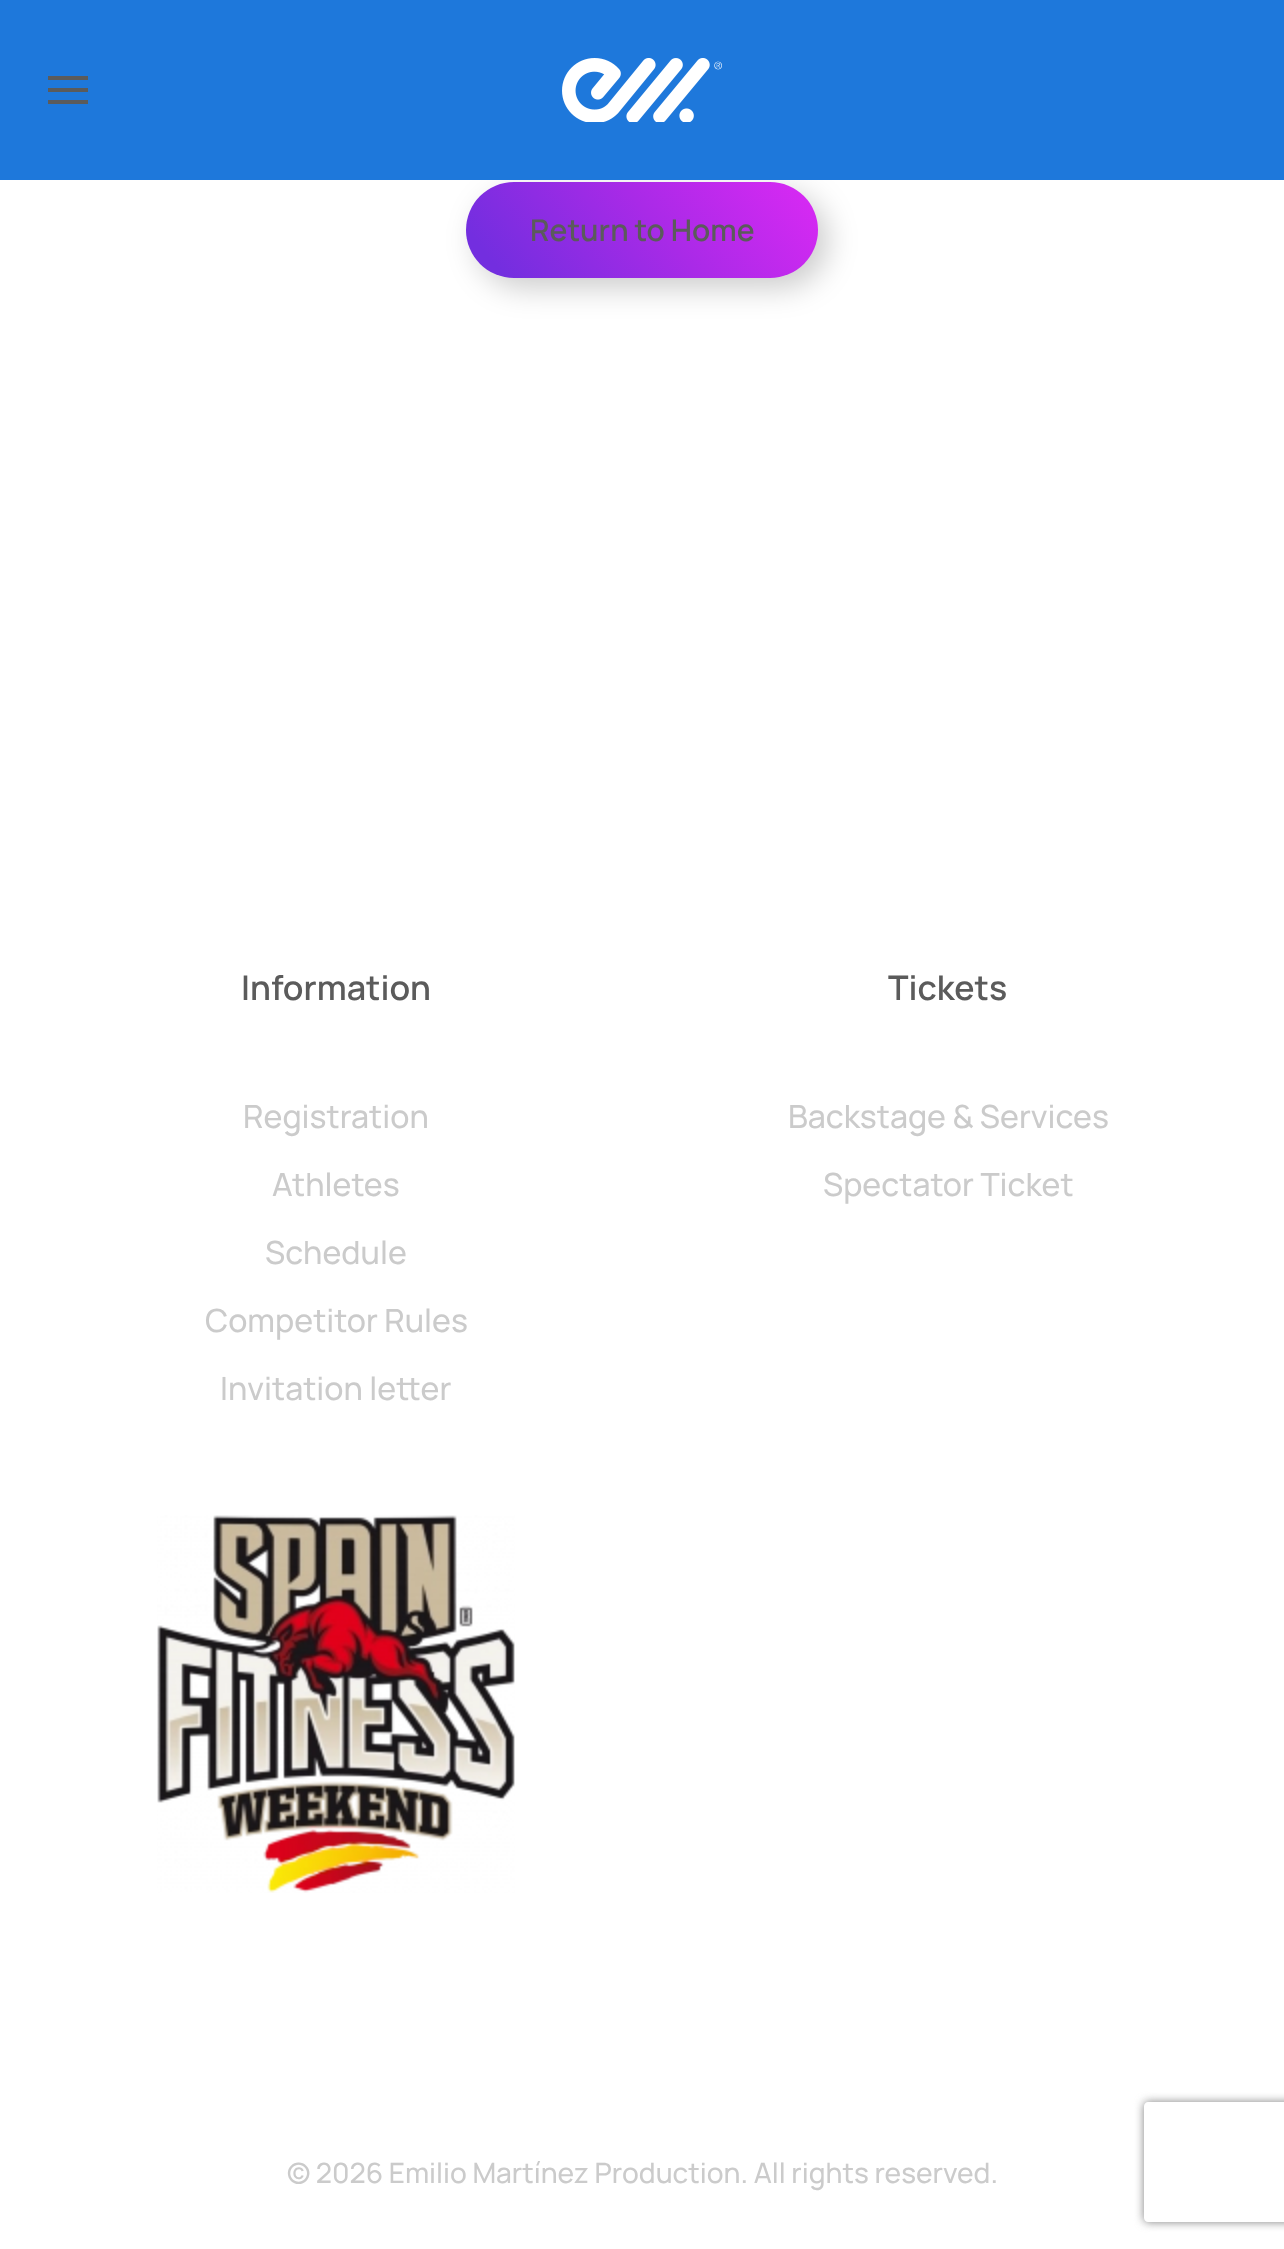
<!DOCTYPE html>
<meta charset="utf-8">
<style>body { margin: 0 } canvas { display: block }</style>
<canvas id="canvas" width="1284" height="2249"></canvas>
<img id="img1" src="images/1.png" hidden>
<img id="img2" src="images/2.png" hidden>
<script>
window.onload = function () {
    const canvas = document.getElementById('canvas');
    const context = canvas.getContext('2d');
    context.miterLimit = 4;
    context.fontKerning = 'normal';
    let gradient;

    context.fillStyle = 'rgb(255, 255, 255)';
    context.fillRect(0, 0, 1284, 2249);
    context.fillStyle = 'rgba(0, 0, 0, 0.2)';
    context.filter = 'blur(15px)';
    context.beginPath();
    context.roundRect(476, 192, 352, 96, 48);
    context.fill();
    context.filter = 'none';
    context.fillStyle = 'rgb(30, 120, 219)';
    context.fillRect(0, 0, 1284, 180);
    context.fillStyle = 'rgb(91, 91, 91)';
    context.fillRect(48, 76, 40, 4);
    context.fillRect(48, 88, 40, 4);
    context.fillRect(48, 100, 40, 4);
    context.drawImage(document.getElementById('img1'), 562, 58, 160, 64);
    gradient = context.createLinearGradient(230, 421, 702, 39);
    gradient.addColorStop(0.5, 'rgb(115, 46, 223)');
    gradient.addColorStop(0.75, 'rgb(169, 42, 231)');
    gradient.addColorStop(1, 'rgb(219, 41, 244)');
    context.fillStyle = gradient;
    context.beginPath();
    context.roundRect(466, 182, 352, 96, 48);
    context.fill();
    context.drawImage(document.getElementById('img2'), 157, 1515, 358, 378);
    context.save();
    context.beginPath();
    context.moveTo(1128, 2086);
    context.lineTo(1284, 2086);
    context.lineTo(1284, 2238);
    context.lineTo(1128, 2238);
    context.closePath();
    context.moveTo(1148, 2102);
    context.lineTo(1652, 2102);
    context.bezierCurveTo(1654, 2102, 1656, 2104, 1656, 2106);
    context.lineTo(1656, 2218);
    context.bezierCurveTo(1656, 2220, 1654, 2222, 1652, 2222);
    context.lineTo(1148, 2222);
    context.bezierCurveTo(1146, 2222, 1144, 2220, 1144, 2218);
    context.lineTo(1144, 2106);
    context.bezierCurveTo(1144, 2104, 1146, 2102, 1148, 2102);
    context.closePath();
    context.clip('evenodd');
    context.fillStyle = 'rgb(128, 128, 128)';
    context.filter = 'blur(5px)';
    context.beginPath();
    context.roundRect(1144, 2102, 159, 120, 4);
    context.fill();
    context.filter = 'none';
    context.restore();
    context.font = '200 30px Manrope';
    context.fillStyle = 'rgb(91, 91, 91)';
    context.fillText('Return to Home', 530, 241);
    context.font = '200 34px Manrope';
    context.fillText('Information', 241, 1000);
    context.font = '200 32px "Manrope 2"';
    context.fillStyle = 'rgb(203, 203, 203)';
    context.fillText('Registration', 243, 1128);
    context.fillText('Athletes', 272, 1196);
    context.fillText('Schedule', 265, 1264);
    context.fillText('Competitor Rules', 205, 1332);
    context.fillText('Invitation letter', 220, 1400);
    context.font = '200 34px Manrope';
    context.fillStyle = 'rgb(91, 91, 91)';
    context.fillText('Tickets', 888, 1000);
    context.font = '200 32px "Manrope 2"';
    context.fillStyle = 'rgb(203, 203, 203)';
    context.fillText('Backstage & Services', 788, 1128);
    context.fillText('Spectator Ticket', 823, 1196);
    context.font = '200 28px "Manrope 2"';
    context.fillText('© 2026 Emilio Martínez Production. All rights reserved.', 287, 2183);
};
</script>
